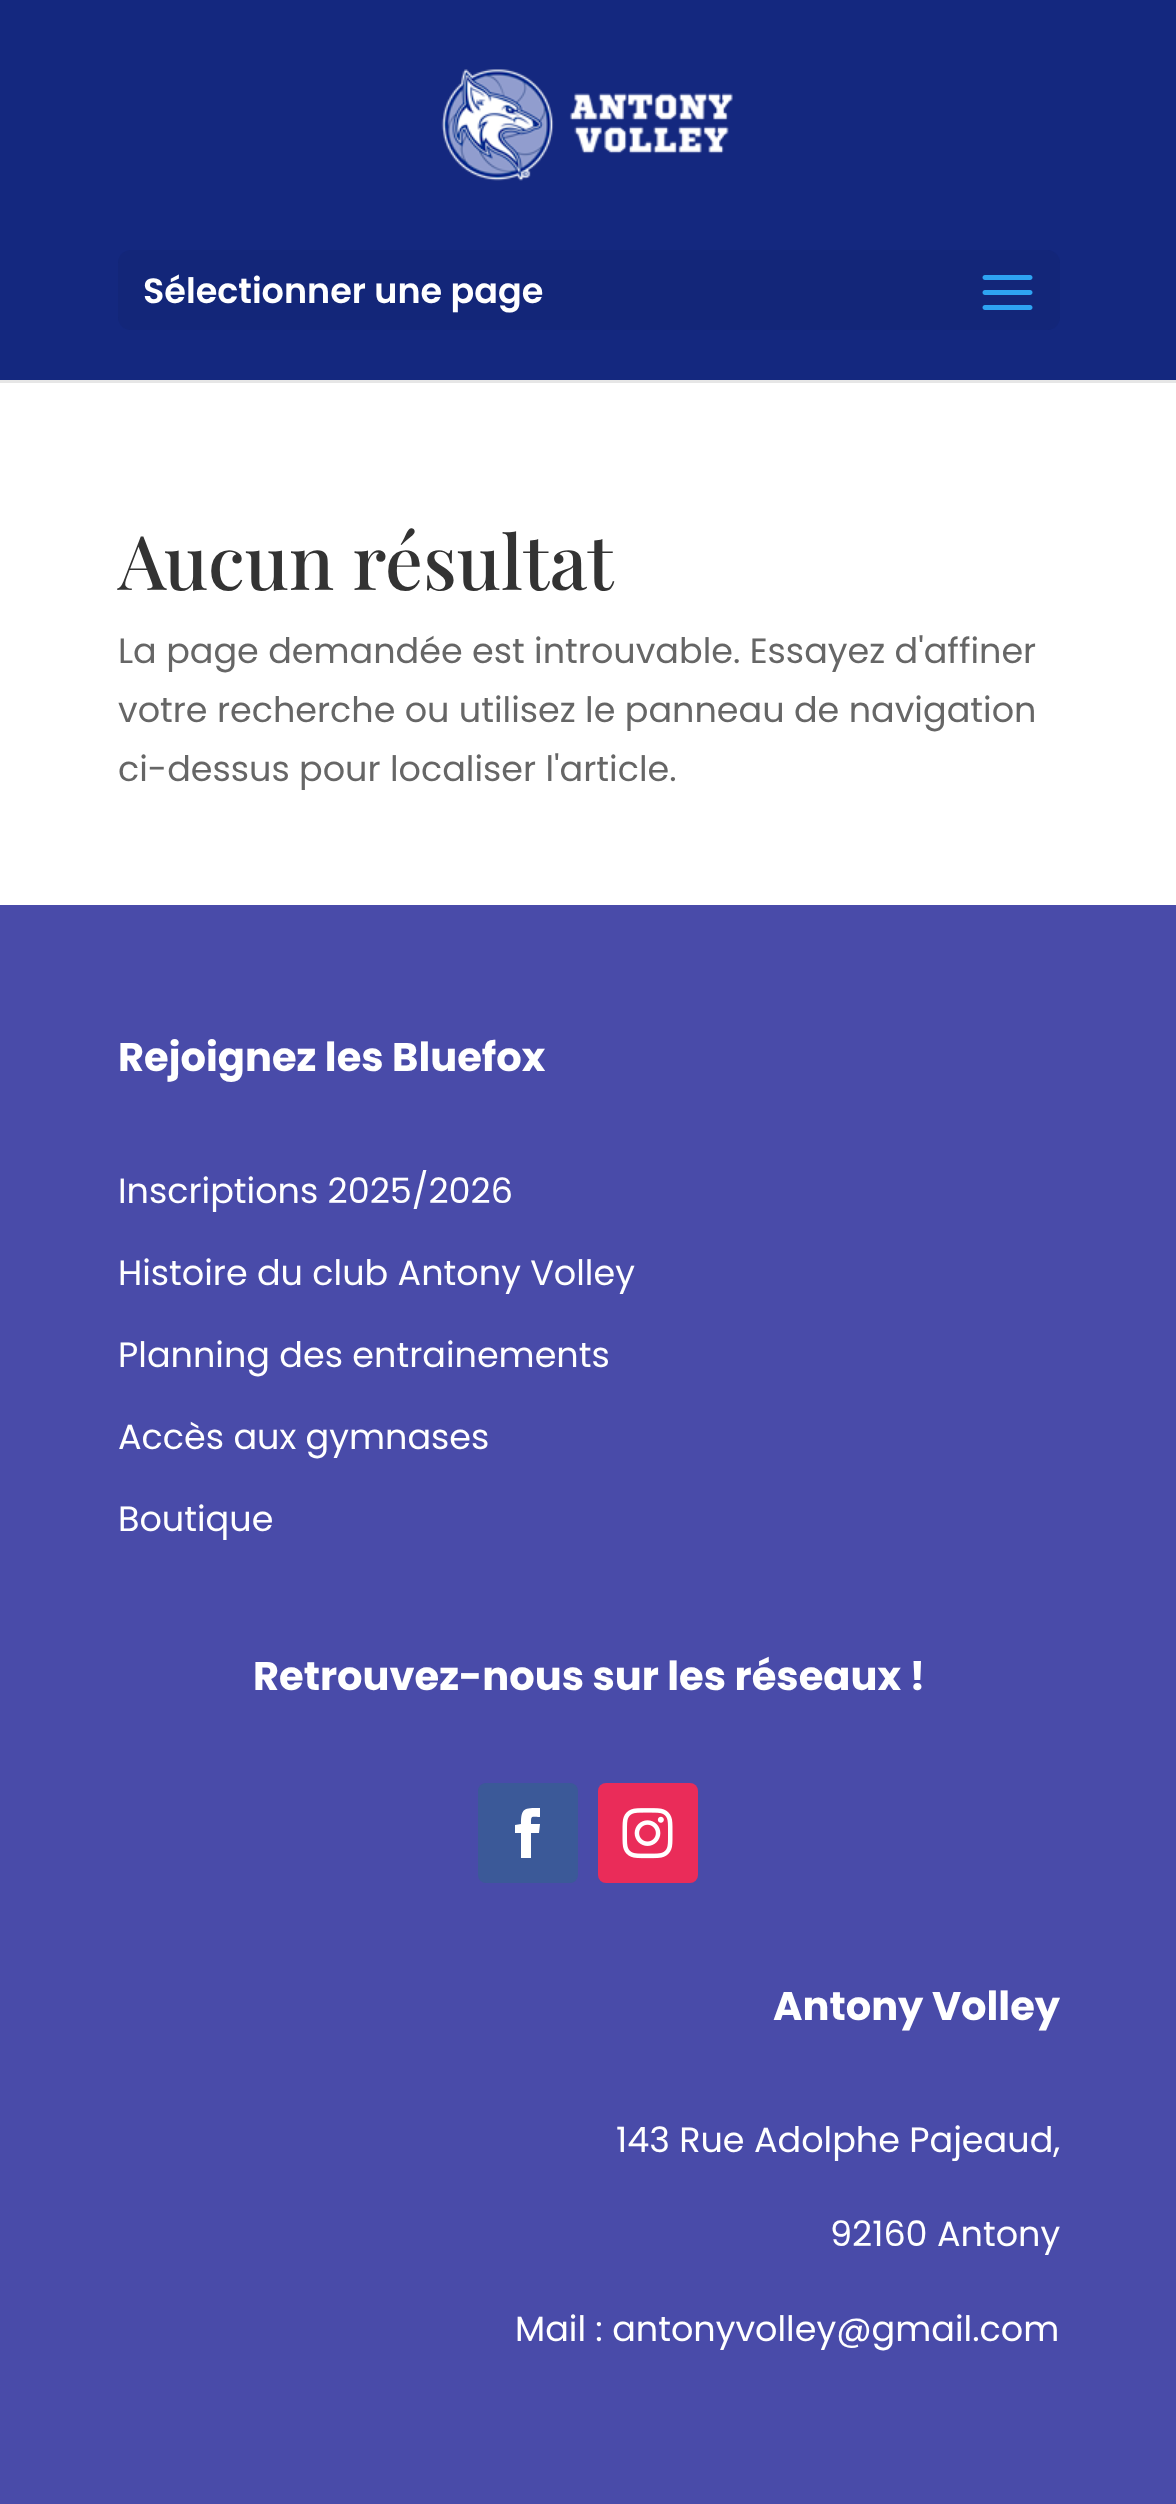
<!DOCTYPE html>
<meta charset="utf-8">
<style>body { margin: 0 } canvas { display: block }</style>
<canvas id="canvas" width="1176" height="2504"></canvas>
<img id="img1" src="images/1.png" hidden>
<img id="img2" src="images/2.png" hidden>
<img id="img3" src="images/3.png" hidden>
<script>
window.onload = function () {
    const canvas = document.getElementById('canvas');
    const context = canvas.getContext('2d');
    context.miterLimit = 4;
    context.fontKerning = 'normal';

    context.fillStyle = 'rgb(255, 255, 255)';
    context.fillRect(0, 0, 1176, 2504);
    context.fillStyle = 'rgb(230, 230, 230)';
    context.beginPath();
    context.moveTo(0, 380);
    context.lineTo(0, 383);
    context.lineTo(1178, 383);
    context.lineTo(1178, 3);
    context.lineTo(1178, 380);
    context.closePath();
    context.fill();
    context.fillStyle = 'rgb(20, 40, 127)';
    context.fillRect(0, 0, 1176, 380);
    context.drawImage(document.getElementById('img1'), 441, 69, 292, 112);
    context.fillStyle = 'rgb(19, 38, 121)';
    context.beginPath();
    context.roundRect(118, 250, 942, 80, 13);
    context.fill();
    context.drawImage(document.getElementById('img2'), 982, 275, 51, 35);
    context.fillStyle = 'rgb(73, 75, 169)';
    context.fillRect(0, 905, 1176, 1599);
    context.fillStyle = 'rgb(59, 89, 152)';
    context.beginPath();
    context.roundRect(478, 1783, 100, 100, 8);
    context.fill();
    context.fillStyle = 'rgb(255, 255, 255)';
    context.beginPath();
    context.moveTo(521, 1858);
    context.lineTo(531, 1858);
    context.lineTo(531, 1833);
    context.lineTo(539, 1833);
    context.lineTo(540, 1824);
    context.lineTo(531, 1824);
    context.bezierCurveTo(531, 1815, 531, 1817, 540, 1817);
    context.lineTo(540, 1808);
    context.bezierCurveTo(524, 1808, 521, 1808, 521, 1824);
    context.lineTo(515, 1825);
    context.lineTo(515, 1833);
    context.lineTo(521, 1833);
    context.closePath();
    context.fill();
    context.fillStyle = 'rgb(234, 44, 89)';
    context.beginPath();
    context.roundRect(598, 1783, 100, 100, 8);
    context.fill();
    context.drawImage(document.getElementById('img3'), 622, 1808, 51, 51);
    context.font = '600 35px Poppins';
    context.fillStyle = 'rgb(255, 255, 255)';
    context.fillText('Sélectionner une page', 143, 303);
    context.font = '500 75px Playfair Display';
    context.fillStyle = 'rgb(51, 51, 51)';
    context.fillText('Aucun résultat', 118, 590);
    context.font = '35px Poppins';
    context.fillStyle = 'rgb(102, 102, 102)';
    context.fillText('La page demandée est introuvable. Essayez d\'affiner', 118, 663);
    context.fillText('votre recherche ou utilisez le panneau de navigation', 118, 722);
    context.fillText('ci-dessus pour localiser l\'article.', 118, 781);
    context.font = 'bold 40px Poppins';
    context.fillStyle = 'rgb(255, 255, 255)';
    context.fillText('Rejoignez les Bluefox', 118, 1071);
    context.font = '35px Poppins';
    context.fillText('Inscriptions 2025/2026', 118, 1203);
    context.fillText('Histoire du club Antony Volley', 118, 1285);
    context.fillText('Planning des entrainements', 118, 1367);
    context.fillText('Accès aux gymnases', 118, 1449);
    context.fillText('Boutique', 118, 1531);
    context.font = 'bold 40px Poppins';
    context.fillText('Retrouvez-nous sur les réseaux !', 253, 1690);
    context.fillText('Antony Volley', 773, 2020);
    context.font = '35px Poppins';
    context.fillText('143 Rue Adolphe Pajeaud,', 616, 2152);
    context.fillText('92160 Antony', 830, 2246);
    context.fillText('Mail : antonyvolley@gmail.com', 515, 2341);
};
</script>
